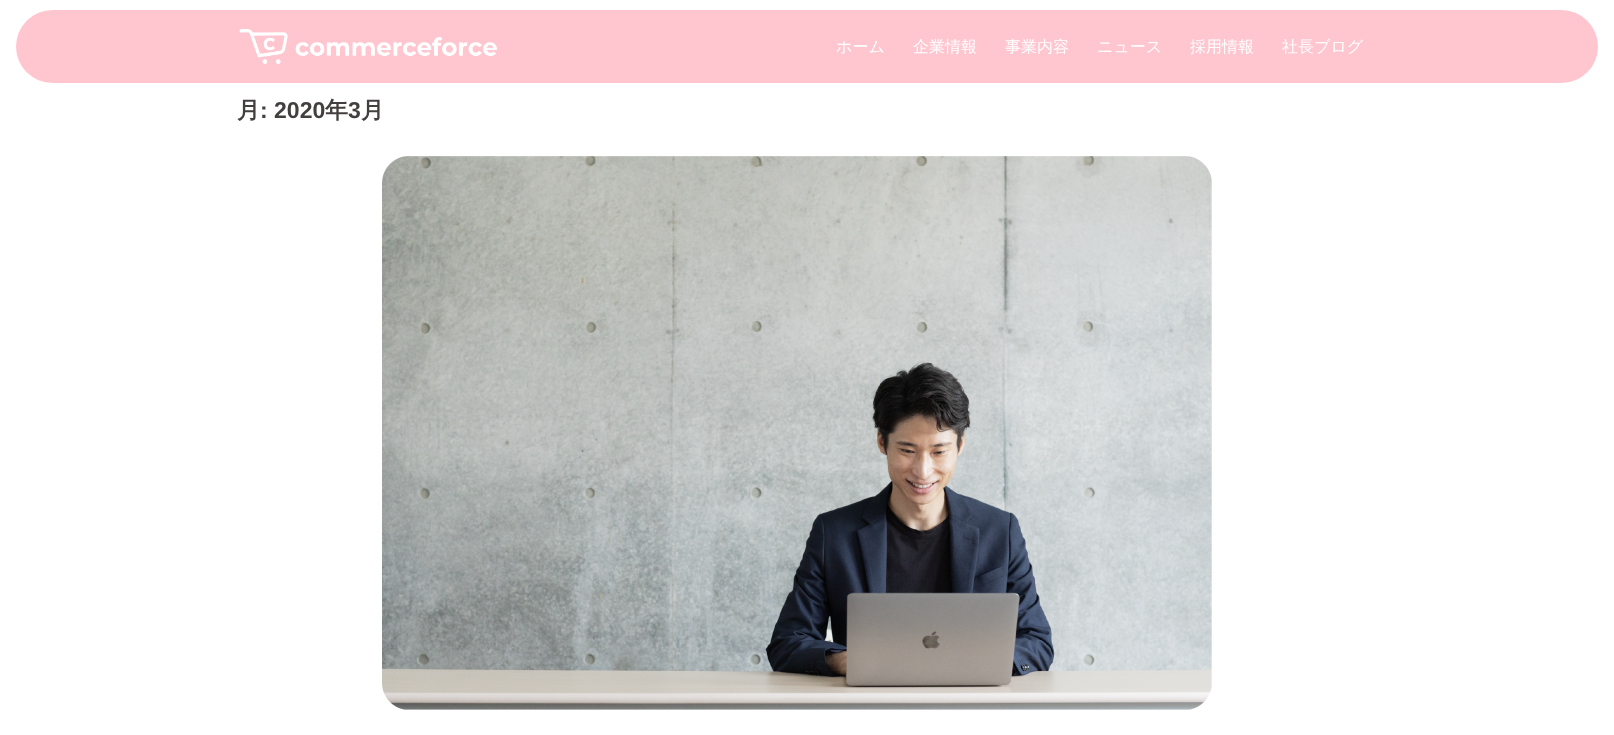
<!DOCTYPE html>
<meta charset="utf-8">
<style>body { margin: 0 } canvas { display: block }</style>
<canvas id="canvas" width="1614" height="735"></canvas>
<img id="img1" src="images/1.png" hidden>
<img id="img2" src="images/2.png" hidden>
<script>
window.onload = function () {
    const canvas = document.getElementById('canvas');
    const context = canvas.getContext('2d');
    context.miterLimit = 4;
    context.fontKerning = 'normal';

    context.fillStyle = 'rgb(255, 255, 255)';
    context.fillRect(0, 0, 1614, 735);
    context.fillStyle = 'rgb(255, 198, 208)';
    context.beginPath();
    context.roundRect(16, 10, 1582, 73, 36.5);
    context.fill();
    context.drawImage(document.getElementById('img1'), 239, 29, 258, 35);
    context.drawImage(document.getElementById('img2'), 382, 156, 830, 554);
    context.font = '500 16px WenQuanYi Zen Hei';
    context.fillStyle = 'rgb(255, 255, 255)';
    context.fillText('ホーム', 836, 52);
    context.fillText('企業情報', 913, 52);
    context.fillText('事業内容', 1005, 52);
    context.fillText('ニュース', 1097, 52);
    context.fillText('採用情報', 1190, 52);
    context.fillText('社長ブログ', 1282, 52);
    context.font = 'bold 23px WenQuanYi Zen Hei';
    context.fillStyle = 'rgb(68, 63, 63)';
    context.fillText('月', 237, 118);
    context.font = 'bold 23px Liberation Sans';
    context.fillText(': 2020', 260, 118);
    context.font = 'bold 23px WenQuanYi Zen Hei';
    context.fillText('年', 325, 118);
    context.font = 'bold 23px Liberation Sans';
    context.fillText('3', 348, 118);
    context.font = 'bold 23px WenQuanYi Zen Hei';
    context.fillText('月', 361, 118);
};
</script>
